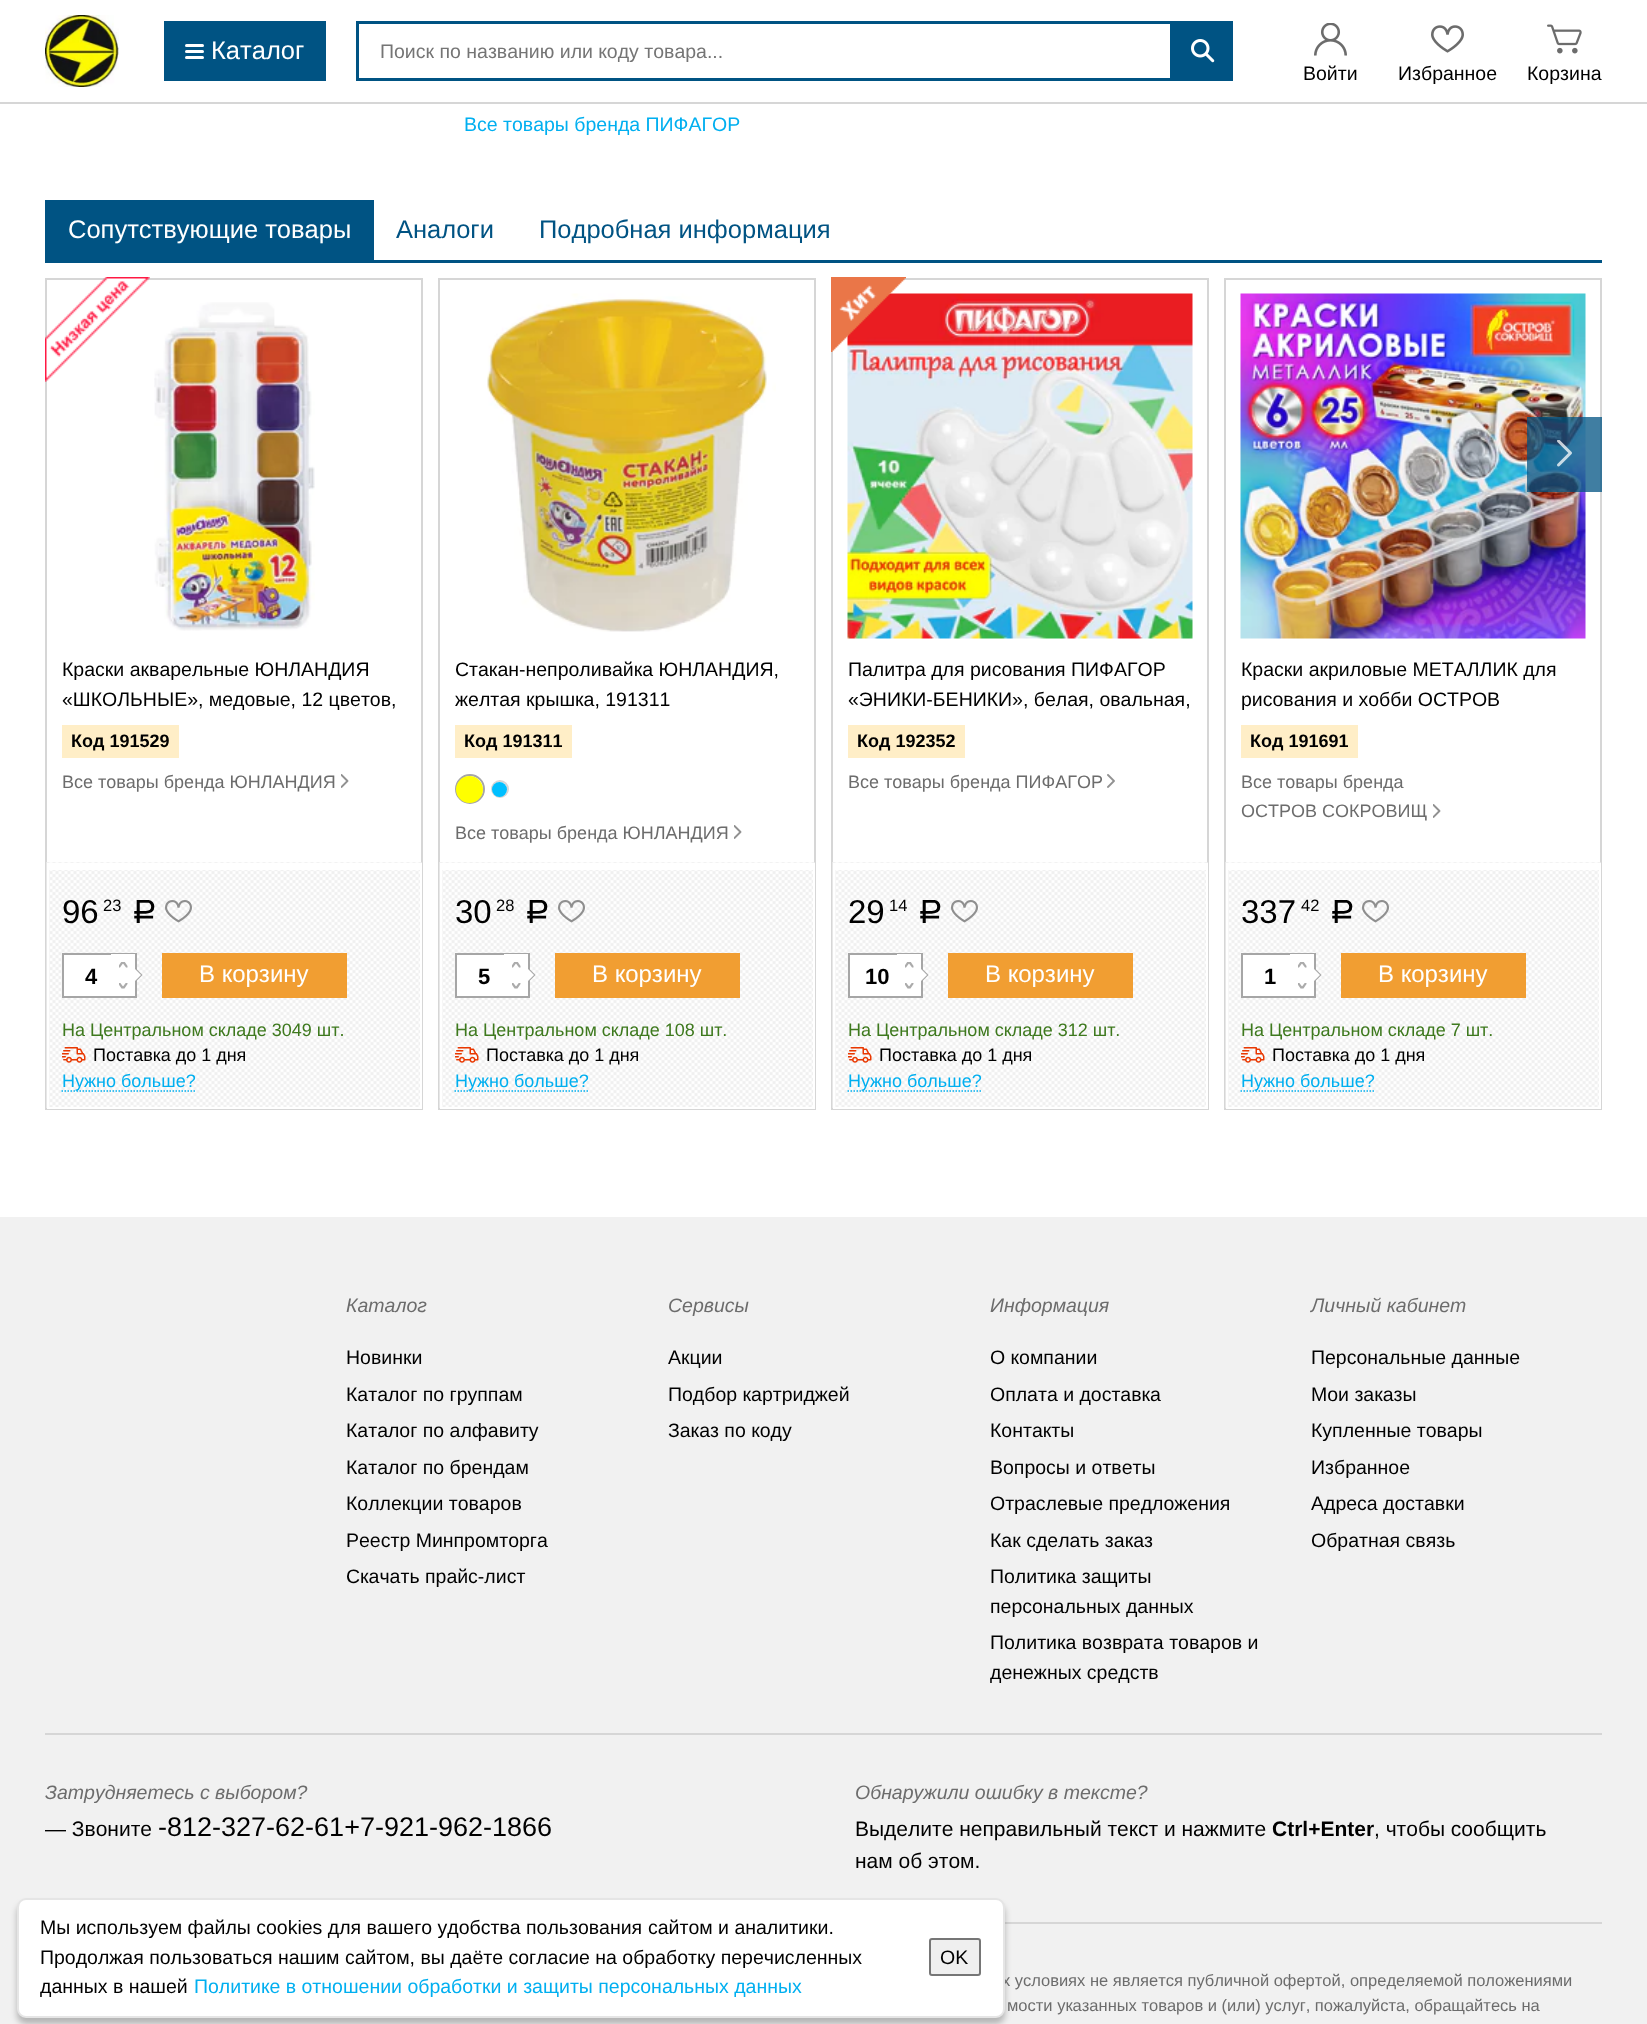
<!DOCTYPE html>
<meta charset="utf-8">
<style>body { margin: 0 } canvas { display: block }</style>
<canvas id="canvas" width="1647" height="2024"></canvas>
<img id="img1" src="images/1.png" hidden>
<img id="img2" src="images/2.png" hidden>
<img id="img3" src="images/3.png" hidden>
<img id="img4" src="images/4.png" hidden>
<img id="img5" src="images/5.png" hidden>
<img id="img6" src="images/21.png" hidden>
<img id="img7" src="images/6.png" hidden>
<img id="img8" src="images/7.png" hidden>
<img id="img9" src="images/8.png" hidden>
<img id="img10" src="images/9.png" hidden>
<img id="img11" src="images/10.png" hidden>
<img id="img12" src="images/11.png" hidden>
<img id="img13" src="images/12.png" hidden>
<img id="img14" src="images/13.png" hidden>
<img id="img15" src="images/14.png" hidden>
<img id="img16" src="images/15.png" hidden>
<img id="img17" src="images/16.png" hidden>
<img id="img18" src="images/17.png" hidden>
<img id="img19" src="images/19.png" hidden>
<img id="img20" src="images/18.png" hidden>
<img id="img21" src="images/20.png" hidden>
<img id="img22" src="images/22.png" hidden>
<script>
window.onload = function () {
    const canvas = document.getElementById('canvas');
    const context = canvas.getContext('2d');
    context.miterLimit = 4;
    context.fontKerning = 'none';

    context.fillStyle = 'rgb(255, 255, 255)';
    context.fillRect(0, 0, 1647, 2024);
    context.fillStyle = 'rgb(214, 214, 214)';
    context.fillRect(0, 102, 1647, 2);
    context.drawImage(document.getElementById('img1'), 45, 15, 74, 72);
    context.fillStyle = 'rgb(0, 83, 131)';
    context.fillRect(164, 21, 162, 60);
    context.fillStyle = 'rgb(255, 255, 255)';
    context.beginPath();
    context.roundRect(185, 50, 19, 3, 1.5);
    context.fill();
    context.beginPath();
    context.roundRect(185, 44, 19, 3, 1.5);
    context.fill();
    context.beginPath();
    context.roundRect(185, 56, 19, 3, 1.5);
    context.fill();
    context.strokeStyle = 'rgb(0, 83, 131)';
    context.lineWidth = 3;
    context.strokeRect(357.5, 22.5, 874, 57);
    context.fillStyle = 'rgb(0, 83, 131)';
    context.fillRect(1170, 24, 60, 54);
    context.drawImage(document.getElementById('img2'), 1191, 39, 24, 24);
    context.drawImage(document.getElementById('img3'), 1314, 23, 33, 33);
    context.drawImage(document.getElementById('img4'), 1431, 25, 33, 28);
    context.drawImage(document.getElementById('img5'), 1547, 24, 35, 30);
    context.fillRect(45, 260, 1557, 3);
    context.fillRect(45, 200, 329, 60);
    context.strokeStyle = 'rgb(214, 214, 214)';
    context.lineWidth = 2;
    context.strokeRect(1225, 279, 376, 830);
    context.drawImage(document.getElementById('img6'), 1240, 293, 346, 346);
    context.fillStyle = 'rgba(0, 83, 131, 0.75)';
    context.fillRect(1527, 417, 75, 75);
    context.drawImage(document.getElementById('img7'), 1557, 440, 15, 27);
    context.strokeRect(46, 279, 376, 830);
    context.drawImage(document.getElementById('img8'), 45, 277, 105, 105);
    context.drawImage(document.getElementById('img9'), 154, 302, 161, 329);
    context.fillStyle = 'rgb(255, 238, 199)';
    context.fillRect(62, 725, 117, 33);
    context.drawImage(document.getElementById('img10'), 341, 774, 8, 14);
    context.drawImage(document.getElementById('img11'), 46, 862, 376, 246);
    context.strokeStyle = 'rgb(255, 255, 255)';
    context.strokeRect(48, 864, 373, 244);
    context.fillStyle = 'rgb(255, 255, 255)';
    context.fillRect(47, 865, 375, 5);
    context.drawImage(document.getElementById('img12'), 165, 900, 27, 23);
    context.fillRect(64, 955, 47, 41);
    context.strokeStyle = 'rgb(166, 166, 166)';
    context.strokeRect(63, 954, 73, 43);
    context.fillRect(111, 954, 24, 42);
    context.drawImage(document.getElementById('img13'), 119, 962, 9, 6);
    context.drawImage(document.getElementById('img14'), 119, 983, 9, 6);
    context.fillStyle = 'rgb(166, 166, 166)';
    context.beginPath();
    context.moveTo(135, 982.5);
    context.lineTo(135, 967.5);
    context.lineTo(142.5, 975);
    context.closePath();
    context.fill();
    context.fillStyle = 'rgb(255, 255, 255)';
    context.beginPath();
    context.moveTo(135, 981);
    context.lineTo(135, 969);
    context.lineTo(141, 975);
    context.closePath();
    context.fill();
    context.fillStyle = 'rgb(241, 158, 50)';
    context.fillRect(162, 953, 185, 45);
    context.drawImage(document.getElementById('img15'), 62, 1047, 24, 16);
    context.beginPath();
    context.moveTo(61.5, 1091);
    context.lineTo(195, 1091);
    context.strokeStyle = 'rgb(0, 175, 240)';
    context.lineWidth = 1.5;
    context.setLineDash([1.5, 1.5]);
    context.stroke();
    context.strokeStyle = 'rgb(214, 214, 214)';
    context.lineWidth = 2;
    context.setLineDash([]);
    context.strokeRect(439, 279, 376, 830);
    context.drawImage(document.getElementById('img16'), 487, 293, 289, 339);
    context.fillStyle = 'rgb(255, 238, 199)';
    context.fillRect(455, 725, 117, 33);
    context.beginPath();
    context.arc(470, 789, 14, 0, 2 * Math.PI);
    context.strokeStyle = 'rgb(166, 166, 166)';
    context.stroke();
    context.fillStyle = 'rgb(255, 255, 0)';
    context.beginPath();
    context.arc(469.5, 789.5, 13.5, 0, 2 * Math.PI);
    context.fill();
    context.beginPath();
    context.arc(500, 789, 8, 0, 2 * Math.PI);
    context.strokeStyle = 'rgb(214, 214, 214)';
    context.stroke();
    context.fillStyle = 'rgb(0, 191, 255)';
    context.beginPath();
    context.arc(499.5, 789.5, 7.5, 0, 2 * Math.PI);
    context.fill();
    context.drawImage(document.getElementById('img10'), 734, 825, 8, 14);
    context.drawImage(document.getElementById('img17'), 439, 862, 376, 246);
    context.strokeStyle = 'rgb(255, 255, 255)';
    context.strokeRect(441, 864, 373, 244);
    context.fillStyle = 'rgb(255, 255, 255)';
    context.fillRect(440, 865, 375, 5);
    context.drawImage(document.getElementById('img12'), 558, 900, 27, 23);
    context.fillRect(457, 955, 47, 41);
    context.strokeStyle = 'rgb(166, 166, 166)';
    context.strokeRect(456, 954, 73, 43);
    context.fillRect(504, 954, 24, 42);
    context.drawImage(document.getElementById('img13'), 512, 962, 9, 6);
    context.drawImage(document.getElementById('img14'), 512, 983, 9, 6);
    context.fillStyle = 'rgb(166, 166, 166)';
    context.beginPath();
    context.moveTo(528, 982.5);
    context.lineTo(528, 967.5);
    context.lineTo(535.5, 975);
    context.closePath();
    context.fill();
    context.fillStyle = 'rgb(255, 255, 255)';
    context.beginPath();
    context.moveTo(528, 981);
    context.lineTo(528, 969);
    context.lineTo(534, 975);
    context.closePath();
    context.fill();
    context.fillStyle = 'rgb(241, 158, 50)';
    context.fillRect(555, 953, 185, 45);
    context.drawImage(document.getElementById('img18'), 455, 1047, 24, 16);
    context.beginPath();
    context.moveTo(454.5, 1091);
    context.lineTo(588, 1091);
    context.strokeStyle = 'rgb(0, 175, 240)';
    context.lineWidth = 1.5;
    context.setLineDash([1.5, 1.5]);
    context.stroke();
    context.strokeStyle = 'rgb(214, 214, 214)';
    context.lineWidth = 2;
    context.setLineDash([]);
    context.strokeRect(832, 279, 376, 830);
    context.drawImage(document.getElementById('img19'), 847, 293, 346, 346);
    context.drawImage(document.getElementById('img20'), 831, 277, 75, 75);
    context.fillStyle = 'rgb(255, 238, 199)';
    context.fillRect(848, 725, 117, 33);
    context.drawImage(document.getElementById('img21'), 1107, 774, 8, 14);
    context.drawImage(document.getElementById('img11'), 832, 862, 376, 246);
    context.strokeStyle = 'rgb(255, 255, 255)';
    context.strokeRect(834, 864, 373, 244);
    context.fillStyle = 'rgb(255, 255, 255)';
    context.fillRect(833, 865, 375, 5);
    context.drawImage(document.getElementById('img12'), 951, 900, 27, 23);
    context.fillRect(850, 955, 47, 41);
    context.strokeStyle = 'rgb(166, 166, 166)';
    context.strokeRect(849, 954, 73, 43);
    context.fillRect(897, 954, 24, 42);
    context.drawImage(document.getElementById('img13'), 905, 962, 9, 6);
    context.drawImage(document.getElementById('img14'), 905, 983, 9, 6);
    context.fillStyle = 'rgb(166, 166, 166)';
    context.beginPath();
    context.moveTo(921, 982.5);
    context.lineTo(921, 967.5);
    context.lineTo(928.5, 975);
    context.closePath();
    context.fill();
    context.fillStyle = 'rgb(255, 255, 255)';
    context.beginPath();
    context.moveTo(921, 981);
    context.lineTo(921, 969);
    context.lineTo(927, 975);
    context.closePath();
    context.fill();
    context.fillStyle = 'rgb(241, 158, 50)';
    context.fillRect(948, 953, 185, 45);
    context.drawImage(document.getElementById('img15'), 848, 1047, 24, 16);
    context.beginPath();
    context.moveTo(847.5, 1091);
    context.lineTo(981, 1091);
    context.strokeStyle = 'rgb(0, 175, 240)';
    context.lineWidth = 1.5;
    context.setLineDash([1.5, 1.5]);
    context.stroke();
    context.fillStyle = 'rgb(255, 238, 199)';
    context.fillRect(1241, 725, 117, 33);
    context.drawImage(document.getElementById('img10'), 1433, 804, 8, 14);
    context.drawImage(document.getElementById('img22'), 1225, 862, 376, 246);
    context.strokeStyle = 'rgb(255, 255, 255)';
    context.lineWidth = 2;
    context.setLineDash([]);
    context.strokeRect(1227, 864, 373, 244);
    context.fillStyle = 'rgb(255, 255, 255)';
    context.fillRect(1226, 865, 375, 5);
    context.drawImage(document.getElementById('img12'), 1362, 900, 27, 23);
    context.fillRect(1243, 955, 47, 41);
    context.strokeStyle = 'rgb(166, 166, 166)';
    context.strokeRect(1242, 954, 73, 43);
    context.fillRect(1290, 954, 24, 42);
    context.drawImage(document.getElementById('img13'), 1298, 962, 9, 6);
    context.drawImage(document.getElementById('img14'), 1298, 983, 9, 6);
    context.fillStyle = 'rgb(166, 166, 166)';
    context.beginPath();
    context.moveTo(1314, 982.5);
    context.lineTo(1314, 967.5);
    context.lineTo(1321.5, 975);
    context.closePath();
    context.fill();
    context.fillStyle = 'rgb(255, 255, 255)';
    context.beginPath();
    context.moveTo(1314, 981);
    context.lineTo(1314, 969);
    context.lineTo(1320, 975);
    context.closePath();
    context.fill();
    context.fillStyle = 'rgb(241, 158, 50)';
    context.fillRect(1341, 953, 185, 45);
    context.drawImage(document.getElementById('img15'), 1241, 1047, 24, 16);
    context.beginPath();
    context.moveTo(1240.5, 1091);
    context.lineTo(1374, 1091);
    context.strokeStyle = 'rgb(0, 175, 240)';
    context.lineWidth = 1.5;
    context.setLineDash([1.5, 1.5]);
    context.stroke();
    context.fillStyle = 'rgb(241, 241, 241)';
    context.fillRect(0, 1217, 1647, 807);
    context.fillStyle = 'rgb(214, 214, 214)';
    context.fillRect(45, 1733, 1557, 2);
    context.fillRect(1005, 1922, 597, 2);
    context.fillStyle = 'rgba(0, 0, 0, 0.25)';
    context.filter = 'blur(3px)';
    context.beginPath();
    context.roundRect(17, 1904, 988, 120, 9);
    context.fill();
    context.filter = 'none';
    context.font = '25.5px Liberation Sans';
    context.fillStyle = 'rgb(255, 255, 255)';
    context.fillText('Каталог', 211, 59);
    context.font = '19.5px Liberation Sans';
    context.fillStyle = 'rgb(117, 117, 117)';
    context.fillText('Поиск по названию или коду товара...', 380, 58);
    context.fillStyle = 'rgb(0, 0, 0)';
    context.fillText('Войти', 1303, 80);
    context.fillText('Избранное', 1398, 80);
    context.fillText('Корзина', 1527, 80);
    context.fillStyle = 'rgb(0, 175, 240)';
    context.fillText('Все товары бренда ПИФАГОР', 464, 131);
    context.font = '25.5px Liberation Sans';
    context.fillStyle = 'rgb(255, 255, 255)';
    context.fillText('Сопутствующие товары', 68, 238);
    context.fillStyle = 'rgb(0, 83, 131)';
    context.fillText('Аналоги', 396, 238);
    context.fillText('Подробная информация', 539, 238);
    context.font = '19.5px Liberation Sans';
    context.fillStyle = 'rgb(0, 0, 0)';
    context.fillText('Краски акварельные ЮНЛАНДИЯ', 62, 676);
    context.fillText('«ШКОЛЬНЫЕ», медовые, 12 цветов,', 62, 706);
    context.font = 'bold 18px Liberation Sans';
    context.fillText('Код 191529', 71, 747);
    context.font = '18px Liberation Sans';
    context.fillStyle = 'rgb(108, 108, 108)';
    context.fillText('Все товары бренда ЮНЛАНДИЯ', 62, 788);
    context.font = '33px Liberation Sans';
    context.fillStyle = 'rgb(0, 0, 0)';
    context.fillText('96', 62, 923);
    context.font = '16.5px Liberation Sans';
    context.fillText('23', 103, 911);
    context.font = '33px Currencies';
    context.fillText('руб', 129, 923);
    context.font = 'bold 22px Liberation Sans';
    context.fillText('4', 85, 984);
    context.font = '24px Liberation Sans';
    context.fillStyle = 'rgb(255, 255, 255)';
    context.fillText('В корзину', 199, 982);
    context.beginPath();
    context.moveTo(246, 967.5);
    context.bezierCurveTo(249.5, 963.5, 256, 963.5, 259.5, 967.5);
    context.strokeStyle = 'rgb(241, 158, 50)';
    context.lineWidth = 6;
    context.setLineDash([]);
    context.stroke();
    context.font = '18px Liberation Sans';
    context.fillStyle = 'rgb(62, 121, 30)';
    context.fillText('На Центральном складе 3049 шт.', 62, 1036);
    context.fillStyle = 'rgb(0, 0, 0)';
    context.fillText('Поставка до 1 дня', 93, 1061);
    context.fillStyle = 'rgb(0, 175, 240)';
    context.fillText('Нужно больше?', 62, 1087);
    context.font = '19.5px Liberation Sans';
    context.fillStyle = 'rgb(0, 0, 0)';
    context.fillText('Стакан-непроливайка ЮНЛАНДИЯ,', 455, 676);
    context.fillText('желтая крышка, 191311', 455, 706);
    context.font = 'bold 18px Liberation Sans';
    context.fillText('Код 191311', 464, 747);
    context.font = '18px Liberation Sans';
    context.fillStyle = 'rgb(108, 108, 108)';
    context.fillText('Все товары бренда ЮНЛАНДИЯ', 455, 839);
    context.font = '33px Liberation Sans';
    context.fillStyle = 'rgb(0, 0, 0)';
    context.fillText('30', 455, 923);
    context.font = '16.5px Liberation Sans';
    context.fillText('28', 496, 911);
    context.font = '33px Currencies';
    context.fillText('руб', 522, 923);
    context.font = 'bold 22px Liberation Sans';
    context.fillText('5', 478, 984);
    context.font = '24px Liberation Sans';
    context.fillStyle = 'rgb(255, 255, 255)';
    context.fillText('В корзину', 592, 982);
    context.beginPath();
    context.moveTo(639, 967.5);
    context.bezierCurveTo(642.5, 963.5, 649, 963.5, 652.5, 967.5);
    context.stroke();
    context.font = '18px Liberation Sans';
    context.fillStyle = 'rgb(62, 121, 30)';
    context.fillText('На Центральном складе 108 шт.', 455, 1036);
    context.fillStyle = 'rgb(0, 0, 0)';
    context.fillText('Поставка до 1 дня', 486, 1061);
    context.fillStyle = 'rgb(0, 175, 240)';
    context.fillText('Нужно больше?', 455, 1087);
    context.font = '19.5px Liberation Sans';
    context.fillStyle = 'rgb(0, 0, 0)';
    context.fillText('Палитра для рисования ПИФАГОР', 848, 676);
    context.fillText('«ЭНИКИ-БЕНИКИ», белая, овальная,', 848, 706);
    context.font = 'bold 18px Liberation Sans';
    context.fillText('Код 192352', 857, 747);
    context.font = '18px Liberation Sans';
    context.fillStyle = 'rgb(108, 108, 108)';
    context.fillText('Все товары бренда ПИФАГОР', 848, 788);
    context.font = '33px Liberation Sans';
    context.fillStyle = 'rgb(0, 0, 0)';
    context.fillText('29', 848, 923);
    context.font = '16.5px Liberation Sans';
    context.fillText('14', 889, 911);
    context.font = '33px Currencies';
    context.fillText('руб', 915, 923);
    context.font = 'bold 22px Liberation Sans';
    context.fillText('10', 865, 984);
    context.font = '24px Liberation Sans';
    context.fillStyle = 'rgb(255, 255, 255)';
    context.fillText('В корзину', 985, 982);
    context.beginPath();
    context.moveTo(1032, 967.5);
    context.bezierCurveTo(1035.5, 963.5, 1042, 963.5, 1045.5, 967.5);
    context.stroke();
    context.font = '18px Liberation Sans';
    context.fillStyle = 'rgb(62, 121, 30)';
    context.fillText('На Центральном складе 312 шт.', 848, 1036);
    context.fillStyle = 'rgb(0, 0, 0)';
    context.fillText('Поставка до 1 дня', 879, 1061);
    context.fillStyle = 'rgb(0, 175, 240)';
    context.fillText('Нужно больше?', 848, 1087);
    context.font = '19.5px Liberation Sans';
    context.fillStyle = 'rgb(0, 0, 0)';
    context.fillText('Краски акриловые МЕТАЛЛИК для', 1241, 676);
    context.fillText('рисования и хобби ОСТРОВ', 1241, 706);
    context.font = 'bold 18px Liberation Sans';
    context.fillText('Код 191691', 1250, 747);
    context.font = '18px Liberation Sans';
    context.fillStyle = 'rgb(108, 108, 108)';
    context.fillText('Все товары бренда', 1241, 788);
    context.fillText('ОСТРОВ СОКРОВИЩ', 1241, 817);
    context.font = '33px Liberation Sans';
    context.fillStyle = 'rgb(0, 0, 0)';
    context.fillText('337', 1241, 923);
    context.font = '16.5px Liberation Sans';
    context.fillText('42', 1301, 911);
    context.font = '33px Currencies';
    context.fillText('руб', 1327, 923);
    context.font = 'bold 22px Liberation Sans';
    context.fillText('1', 1264, 984);
    context.font = '24px Liberation Sans';
    context.fillStyle = 'rgb(255, 255, 255)';
    context.fillText('В корзину', 1378, 982);
    context.beginPath();
    context.moveTo(1425, 967.5);
    context.bezierCurveTo(1428.5, 963.5, 1435, 963.5, 1438.5, 967.5);
    context.stroke();
    context.font = '18px Liberation Sans';
    context.fillStyle = 'rgb(62, 121, 30)';
    context.fillText('На Центральном складе 7 шт.', 1241, 1036);
    context.fillStyle = 'rgb(0, 0, 0)';
    context.fillText('Поставка до 1 дня', 1272, 1061);
    context.fillStyle = 'rgb(0, 175, 240)';
    context.fillText('Нужно больше?', 1241, 1087);
    context.font = 'italic 19.5px Liberation Sans';
    context.fillStyle = 'rgb(108, 108, 108)';
    context.fillText('Каталог', 346, 1312);
    context.font = '19.5px Liberation Sans';
    context.fillStyle = 'rgb(0, 0, 0)';
    context.fillText('Новинки', 346, 1364);
    context.fillText('Каталог по группам', 346, 1401);
    context.fillText('Каталог по алфавиту', 346, 1437);
    context.fillText('Каталог по брендам', 346, 1474);
    context.fillText('Коллекции товаров', 346, 1510);
    context.fillText('Реестр Минпромторга', 346, 1547);
    context.fillText('Скачать прайс-лист', 346, 1583);
    context.font = 'italic 19.5px Liberation Sans';
    context.fillStyle = 'rgb(108, 108, 108)';
    context.fillText('Сервисы', 668, 1312);
    context.font = '19.5px Liberation Sans';
    context.fillStyle = 'rgb(0, 0, 0)';
    context.fillText('Акции', 668, 1364);
    context.fillText('Подбор картриджей', 668, 1401);
    context.fillText('Заказ по коду', 668, 1437);
    context.font = 'italic 19.5px Liberation Sans';
    context.fillStyle = 'rgb(108, 108, 108)';
    context.fillText('Информация', 990, 1312);
    context.font = '19.5px Liberation Sans';
    context.fillStyle = 'rgb(0, 0, 0)';
    context.fillText('О компании', 990, 1364);
    context.fillText('Оплата и доставка', 990, 1401);
    context.fillText('Контакты', 990, 1437);
    context.fillText('Вопросы и ответы', 990, 1474);
    context.fillText('Отраслевые предложения', 990, 1510);
    context.fillText('Как сделать заказ', 990, 1547);
    context.fillText('Политика защиты', 990, 1583);
    context.fillText('персональных данных', 990, 1613);
    context.fillText('Политика возврата товаров и', 990, 1649);
    context.fillText('денежных средств', 990, 1679);
    context.font = 'italic 19.5px Liberation Sans';
    context.fillStyle = 'rgb(108, 108, 108)';
    context.fillText('Личный кабинет', 1311, 1312);
    context.font = '19.5px Liberation Sans';
    context.fillStyle = 'rgb(0, 0, 0)';
    context.fillText('Персональные данные', 1311, 1364);
    context.fillText('Мои заказы', 1311, 1401);
    context.fillText('Купленные товары', 1311, 1437);
    context.fillText('Избранное', 1311, 1474);
    context.fillText('Адреса доставки', 1311, 1510);
    context.fillText('Обратная связь', 1311, 1547);
    context.font = 'italic 19.5px Liberation Sans';
    context.fillStyle = 'rgb(108, 108, 108)';
    context.fillText('Затрудняетесь с выбором?', 45, 1799);
    context.font = '21px Liberation Sans';
    context.fillStyle = 'rgb(0, 0, 0)';
    context.fillText('— Звоните', 45, 1836);
    context.font = '27px Liberation Sans';
    context.fillText('-812-327-62-61+7-921-962-1866', 158, 1836);
    context.font = 'italic 19.5px Liberation Sans';
    context.fillStyle = 'rgb(108, 108, 108)';
    context.fillText('Обнаружили ошибку в тексте?', 855, 1799);
    context.font = '21px Liberation Sans';
    context.fillStyle = 'rgb(0, 0, 0)';
    context.fillText('Выделите неправильный текст и нажмите', 855, 1836);
    context.font = 'bold 21px Liberation Sans';
    context.fillText('Ctrl+Enter', 1272, 1836);
    context.font = '21px Liberation Sans';
    context.fillText(', чтобы сообщить', 1374, 1836);
    context.fillText('нам об этом.', 855, 1868);
    context.font = '16.5px Liberation Sans';
    context.fillStyle = 'rgb(108, 108, 108)';
    context.fillText('х условиях не является публичной офертой, определяемой положениями', 1002, 1986);
    context.fillText('мости указанных товаров и (или) услуг, пожалуйста, обращайтесь на', 1007, 2011);
    context.fillStyle = 'rgb(255, 255, 255)';
    context.beginPath();
    context.roundRect(18, 1899, 986, 118, 8);
    context.fill();
    context.strokeStyle = 'rgb(229, 229, 229)';
    context.lineWidth = 2;
    context.stroke();
    context.font = '19.5px Liberation Sans';
    context.fillStyle = 'rgb(0, 0, 0)';
    context.fillText('Мы используем файлы cookies для вашего удобства пользования', 40, 1934);
    context.fillText('сайтом и аналитики.', 648, 1934);
    context.fillText('Продолжая пользоваться нашим сайтом, вы даёте согласие на обработку перечисленных', 40, 1964);
    context.fillText('данных в нашей', 40, 1993);
    context.fillStyle = 'rgb(0, 175, 240)';
    context.fillText('Политике в отношении обработки и защиты персональных данных', 194, 1993);
    context.fillStyle = 'rgb(239, 239, 239)';
    context.beginPath();
    context.roundRect(930, 1939, 50, 36, 2);
    context.fill();
    context.strokeStyle = 'rgb(118, 118, 118)';
    context.stroke();
    context.fillStyle = 'rgb(0, 0, 0)';
    context.fillText('OK', 940, 1964);
};
</script>
